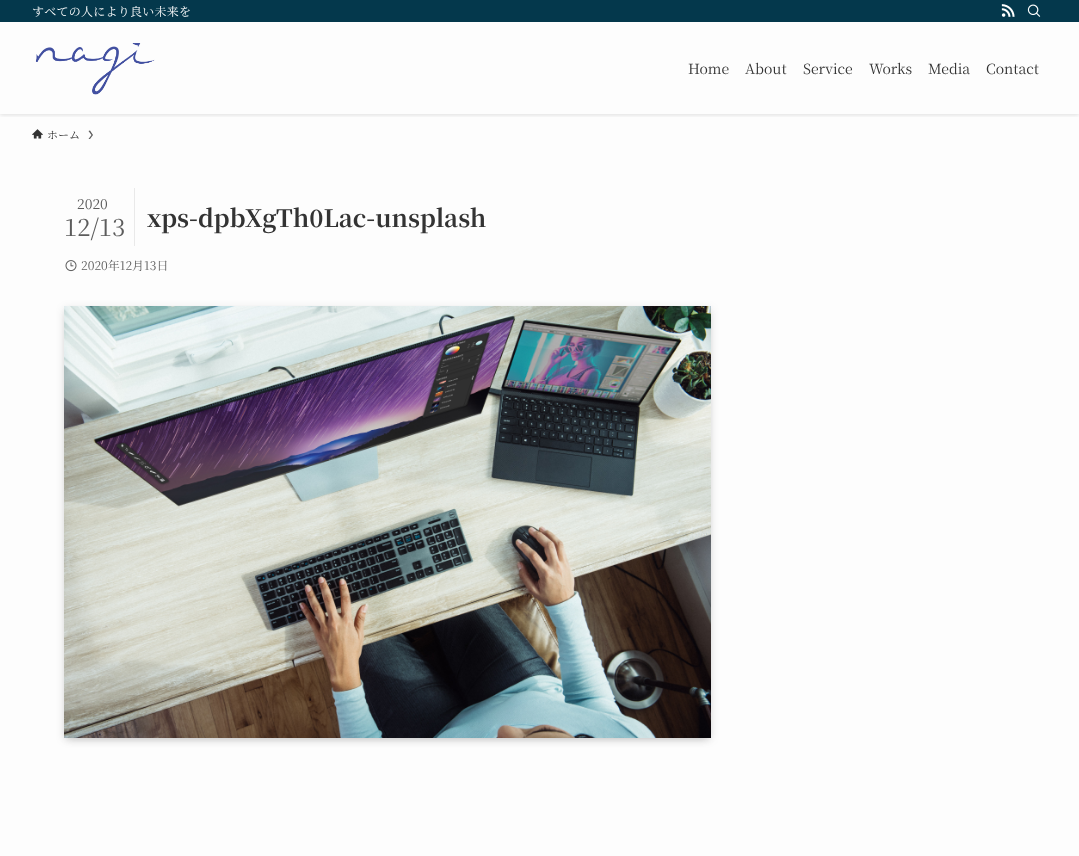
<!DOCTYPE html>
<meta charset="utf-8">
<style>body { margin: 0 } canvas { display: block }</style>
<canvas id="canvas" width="1079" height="856"></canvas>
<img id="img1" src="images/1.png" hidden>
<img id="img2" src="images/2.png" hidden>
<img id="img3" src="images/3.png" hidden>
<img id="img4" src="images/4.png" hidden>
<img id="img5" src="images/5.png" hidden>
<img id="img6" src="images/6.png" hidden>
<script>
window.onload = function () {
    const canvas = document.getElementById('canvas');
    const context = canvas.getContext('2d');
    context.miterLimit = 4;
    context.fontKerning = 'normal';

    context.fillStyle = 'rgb(253, 253, 253)';
    context.fillRect(0, 0, 1079, 856);
    context.save();
    context.beginPath();
    context.rect(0, 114, 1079, 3);
    context.clip();
    context.fillStyle = 'rgba(0, 0, 0, 0.12)';
    context.filter = 'blur(2px)';
    context.beginPath();
    context.rect(0, 1, 1079, 114);
    context.fill();
    context.filter = 'none';
    context.restore();
    context.fillStyle = 'rgb(4, 56, 76)';
    context.fillRect(0, 0, 1079, 22);
    context.drawImage(document.getElementById('img1'), 1001, 4, 14, 13);
    context.drawImage(document.getElementById('img2'), 1027, 4, 14, 13);
    context.drawImage(document.getElementById('img3'), 35, 43, 120, 52);
    context.drawImage(document.getElementById('img4'), 32, 129, 11, 10);
    context.fillStyle = 'rgb(91, 91, 91)';
    context.beginPath();
    context.moveTo(90, 130.5);
    context.lineTo(88.5, 131);
    context.lineTo(91.5, 135);
    context.lineTo(88.5, 139);
    context.lineTo(90, 139);
    context.lineTo(93, 135);
    context.closePath();
    context.fill();
    context.fillStyle = 'rgb(233, 233, 233)';
    context.fillRect(134, 188, 1, 58);
    context.drawImage(document.getElementById('img5'), 65, 260, 12, 12);
    context.fillStyle = 'rgba(0, 0, 0, 0.2)';
    context.filter = 'blur(4px)';
    context.beginPath();
    context.rect(68, 314, 639, 424);
    context.fill();
    context.filter = 'none';
    context.fillStyle = 'rgba(0, 0, 0, 0.1)';
    context.filter = 'blur(4px)';
    context.beginPath();
    context.rect(64, 308, 647, 432);
    context.fill();
    context.filter = 'none';
    context.drawImage(document.getElementById('img6'), 64, 306, 647, 432);
    context.letterSpacing = '0.25px';
    context.font = '12px Noto Serif JP';
    context.fillStyle = 'rgb(255, 255, 255)';
    context.fillText('すべての人により良い未来を', 32, 16);
    context.letterSpacing = '0px';
    context.font = '14px Noto Serif JP';
    context.fillStyle = 'rgb(51, 51, 51)';
    context.fillText('Home', 688, 74);
    context.fillText('About', 745, 74);
    context.fillText('Service', 803, 74);
    context.fillText('Works', 869, 74);
    context.fillText('Media', 928, 74);
    context.fillText('Contact', 986, 74);
    context.font = '11px Noto Serif JP';
    context.fillText('ホーム', 47, 139);
    context.font = '14px Noto Serif JP';
    context.fillStyle = 'rgb(92, 92, 92)';
    context.fillText('2020', 77, 209);
    context.font = '24px Noto Serif JP';
    context.fillText('12/13', 64, 236);
    context.font = 'bold 24px Noto Serif JP';
    context.fillStyle = 'rgb(51, 51, 51)';
    context.fillText('xps-dpbXgTh0Lac-unsplash', 147, 227);
    context.font = '12px Noto Serif JP';
    context.fillStyle = 'rgb(92, 92, 92)';
    context.fillText('2020年12月13日', 81, 270);
};
</script>
